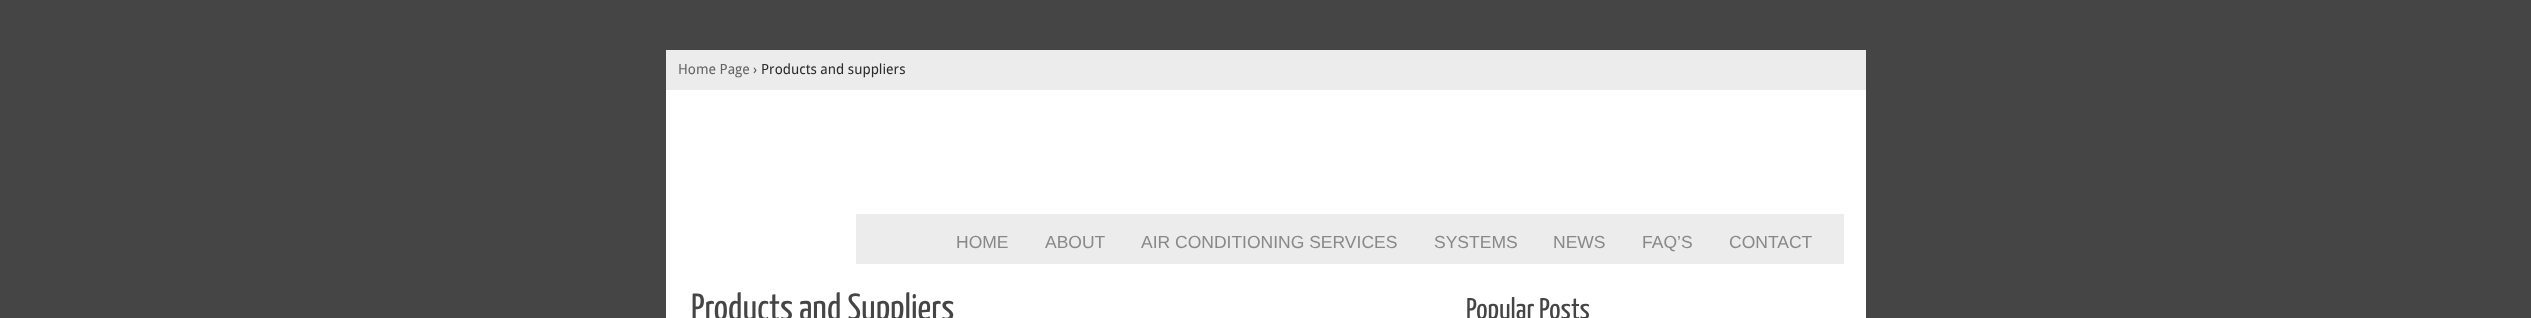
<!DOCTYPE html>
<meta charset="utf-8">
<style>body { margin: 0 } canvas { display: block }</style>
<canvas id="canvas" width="2531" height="318"></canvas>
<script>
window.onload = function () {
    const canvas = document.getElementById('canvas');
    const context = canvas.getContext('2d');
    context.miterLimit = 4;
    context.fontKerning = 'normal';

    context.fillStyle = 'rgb(69, 69, 69)';
    context.fillRect(0, 0, 2531, 318);
    context.fillStyle = 'rgb(255, 255, 255)';
    context.fillRect(666, 90, 1200, 228);
    context.fillStyle = 'rgb(237, 236, 236)';
    context.fillRect(666, 50, 1200, 40);
    context.fillRect(856, 214, 988, 50);
    context.font = '14px Droid Sans';
    context.fillStyle = 'rgb(101, 99, 99)';
    context.fillText('Home Page', 678, 74);
    context.fillStyle = 'rgb(84, 82, 82)';
    context.fillText('›', 753, 74);
    context.fillStyle = 'rgb(44, 43, 43)';
    context.fillText('Products and suppliers', 761, 74);
    context.font = '17.5px Liberation Sans';
    context.fillStyle = 'rgb(137, 135, 135)';
    context.fillText('HOME', 956, 248);
    context.fillText('ABOUT', 1045, 248);
    context.fillText('AIR CONDITIONING SERVICES', 1141, 248);
    context.fillText('SYSTEMS', 1434, 248);
    context.fillText('NEWS', 1553, 248);
    context.fillText('FAQ’S', 1642, 248);
    context.fillText('CONTACT', 1729, 248);
    context.font = '37.75px Yanone Kaffeesatz';
    context.fillStyle = 'rgb(69, 69, 69)';
    context.fillText('Products and Suppliers', 691, 320);
    context.font = '30px Yanone Kaffeesatz';
    context.fillText('Popular Posts', 1466, 319);
};
</script>
